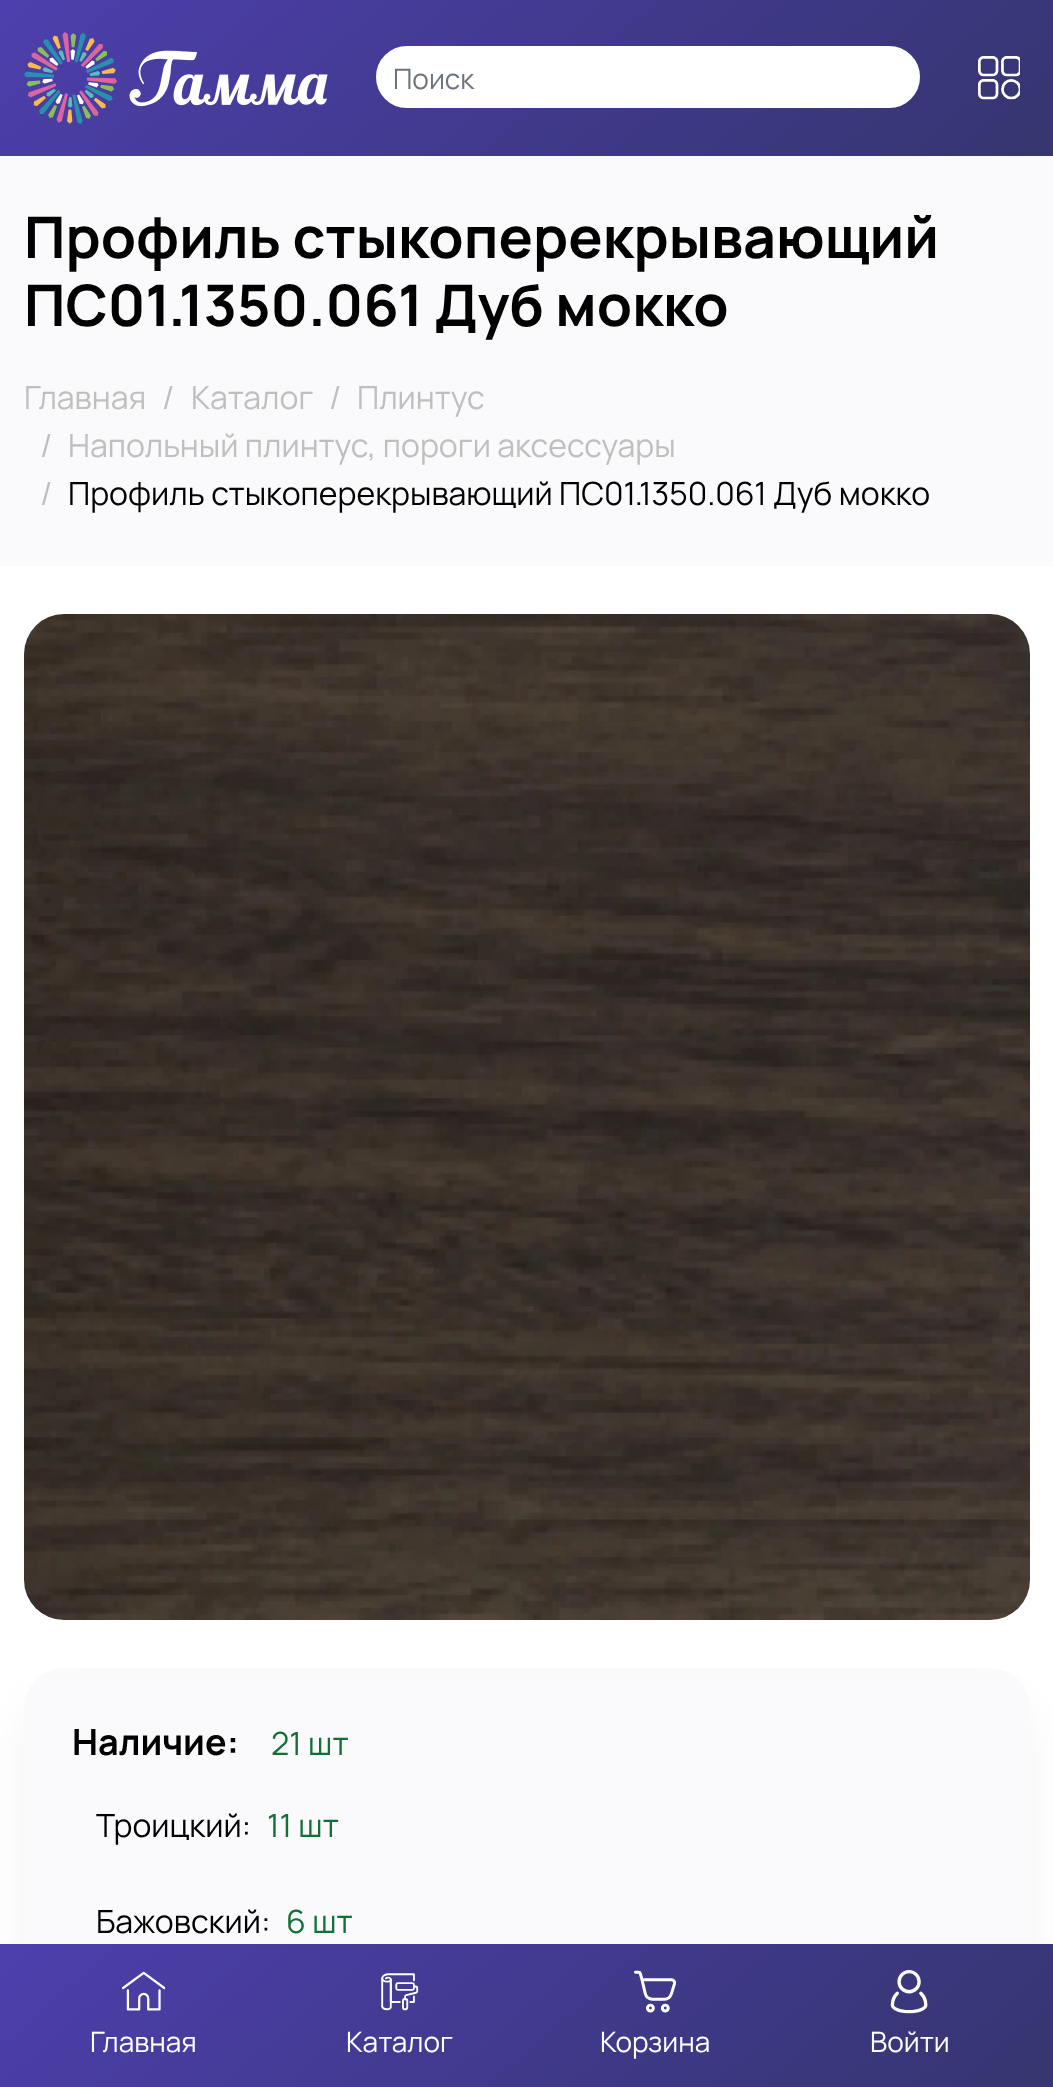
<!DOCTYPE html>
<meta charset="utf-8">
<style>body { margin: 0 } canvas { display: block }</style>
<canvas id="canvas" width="1053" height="2087"></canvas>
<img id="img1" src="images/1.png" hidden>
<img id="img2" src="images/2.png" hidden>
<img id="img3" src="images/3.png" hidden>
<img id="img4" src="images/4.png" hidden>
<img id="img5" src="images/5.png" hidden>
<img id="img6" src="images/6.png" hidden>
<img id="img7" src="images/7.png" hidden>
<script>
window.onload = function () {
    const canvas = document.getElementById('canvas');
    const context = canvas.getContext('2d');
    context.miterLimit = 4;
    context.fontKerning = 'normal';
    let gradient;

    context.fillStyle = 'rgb(255, 255, 255)';
    context.fillRect(0, 0, 1053, 2087);
    gradient = context.createLinearGradient(792, 383, 262, -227);
    gradient.addColorStop(0, 'rgb(53, 53, 111)');
    gradient.addColorStop(1, 'rgb(77, 63, 173)');
    context.fillStyle = gradient;
    context.fillRect(0, 0, 1053, 156);
    context.drawImage(document.getElementById('img1'), 24, 32, 304, 92);
    context.fillStyle = 'rgb(255, 255, 255)';
    context.beginPath();
    context.roundRect(377, 47, 542, 60, 30);
    context.fill();
    context.strokeStyle = 'rgb(255, 255, 255)';
    context.lineWidth = 2;
    context.stroke();
    context.drawImage(document.getElementById('img2'), 978, 56, 42, 44);
    context.fillStyle = 'rgb(250, 250, 252)';
    context.fillRect(0, 156, 1053, 410);
    context.drawImage(document.getElementById('img3'), 24, 614, 1006, 1006);
    context.fillStyle = 'rgba(0, 0, 0, 0.05)';
    context.filter = 'blur(20px)';
    context.beginPath();
    context.roundRect(24, 1700, 1006, 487, 40);
    context.fill();
    context.filter = 'none';
    context.fillStyle = 'rgb(250, 250, 252)';
    context.beginPath();
    context.roundRect(24, 1668, 1006, 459, 40);
    context.fill();
    gradient = context.createLinearGradient(789, 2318, 265, 1714);
    gradient.addColorStop(0, 'rgb(53, 53, 111)');
    gradient.addColorStop(1, 'rgb(77, 63, 173)');
    context.fillStyle = gradient;
    context.fillRect(0, 1944, 1053, 143);
    context.drawImage(document.getElementById('img4'), 122, 1971, 44, 40);
    context.drawImage(document.getElementById('img5'), 381, 1973, 38, 38);
    context.drawImage(document.getElementById('img6'), 634, 1970, 42, 43);
    context.drawImage(document.getElementById('img7'), 890, 1970, 38, 44);
    context.font = '28px Manrope';
    context.fillStyle = 'rgb(108, 117, 125)';
    context.fillText('Поиск', 393, 89);
    context.font = 'bold 57.25px Manrope';
    context.fillStyle = 'rgb(0, 0, 0)';
    context.fillText('Профиль стыкоперекрывающий', 24, 258);
    context.fillText('ПС01.1350.061 Дуб мокко', 24, 326);
    context.font = '32px Manrope';
    context.fillStyle = 'rgb(191, 191, 191)';
    context.fillText('Главная', 24, 409);
    context.fillText('/', 162, 409);
    context.fillText('Каталог', 191, 409);
    context.fillText('/', 329, 409);
    context.fillText('Плинтус', 357, 409);
    context.fillText('/', 40, 457);
    context.fillText('Напольный плинтус, пороги аксессуары', 68, 457);
    context.fillText('/', 40, 505);
    context.fillStyle = 'rgb(0, 0, 0)';
    context.fillText('Профиль стыкоперекрывающий ПС01.1350.061 Дуб мокко', 68, 505);
    context.font = 'bold 36px Manrope';
    context.fillText('Наличие:', 72, 1755);
    context.font = '32px Manrope';
    context.fillStyle = 'rgb(16, 112, 54)';
    context.fillText('21 шт', 271, 1755);
    context.fillStyle = 'rgb(0, 0, 0)';
    context.fillText('Троицкий:', 96, 1837);
    context.fillStyle = 'rgb(16, 112, 54)';
    context.fillText('11 шт', 267, 1837);
    context.fillStyle = 'rgb(0, 0, 0)';
    context.fillText('Бажовский:', 96, 1933);
    context.fillStyle = 'rgb(16, 112, 54)';
    context.fillText('6 шт', 286, 1933);
    context.font = '28px Manrope';
    context.fillStyle = 'rgb(255, 255, 255)';
    context.fillText('Главная', 90, 2052);
    context.fillText('Каталог', 346, 2052);
    context.fillText('Корзина', 600, 2052);
    context.fillText('Войти', 870, 2052);
};
</script>
